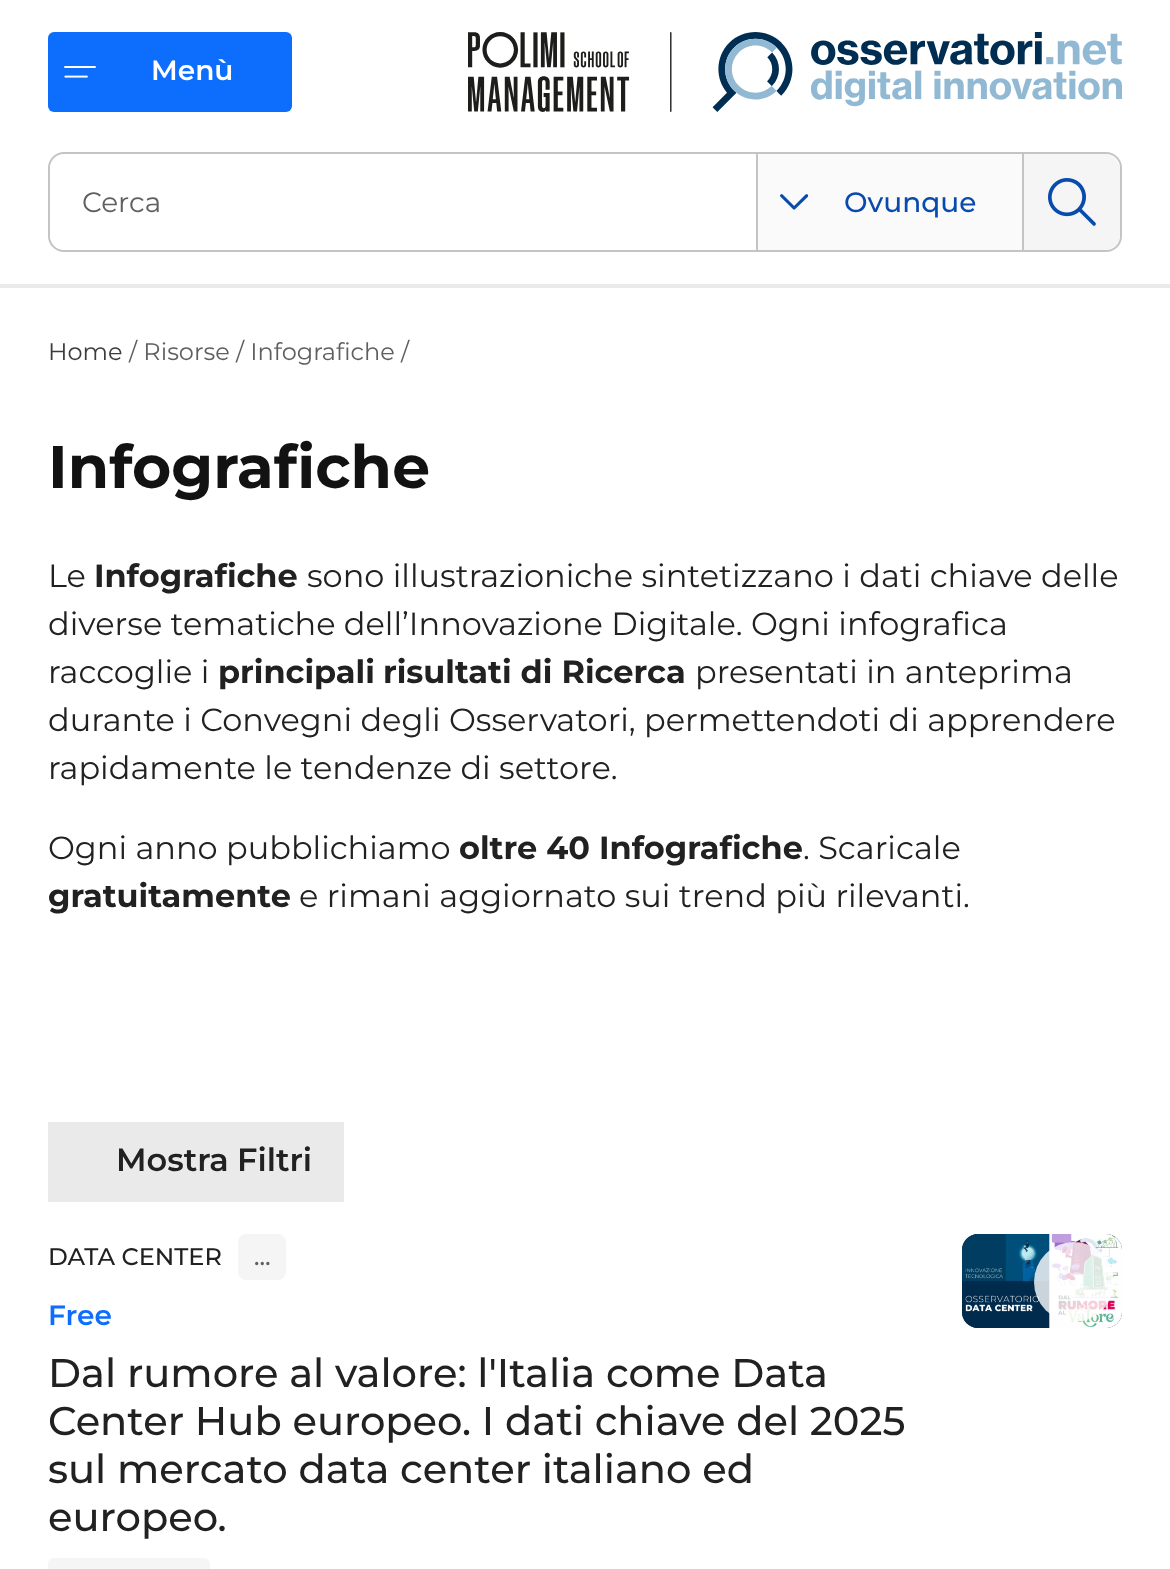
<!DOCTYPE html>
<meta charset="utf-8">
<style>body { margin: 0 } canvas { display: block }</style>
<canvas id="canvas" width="1170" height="1569"></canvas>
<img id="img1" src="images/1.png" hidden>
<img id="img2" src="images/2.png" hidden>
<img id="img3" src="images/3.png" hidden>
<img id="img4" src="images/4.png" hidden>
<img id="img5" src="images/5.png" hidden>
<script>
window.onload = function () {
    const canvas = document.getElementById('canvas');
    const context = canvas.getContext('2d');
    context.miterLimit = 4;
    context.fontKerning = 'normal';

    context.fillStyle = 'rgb(255, 255, 255)';
    context.fillRect(0, 0, 1170, 1569);
    context.fillStyle = 'rgb(234, 234, 234)';
    context.fillRect(0, 284, 1170, 4);
    context.fillStyle = 'rgb(13, 110, 253)';
    context.beginPath();
    context.roundRect(48, 32, 244, 80, 6);
    context.fill();
    context.drawImage(document.getElementById('img1'), 64, 66, 32, 12);
    context.drawImage(document.getElementById('img2'), 468, 32, 654, 80);
    context.beginPath();
    context.roundRect(49, 153, 1072, 98, 15);
    context.strokeStyle = 'rgb(196, 196, 196)';
    context.lineWidth = 2;
    context.stroke();
    context.fillStyle = 'rgb(255, 255, 255)';
    context.beginPath();
    context.roundRect(50, 154, 706, 96, [16, 0, 0, 16]);
    context.fill();
    context.fillStyle = 'rgb(250, 250, 251)';
    context.fillRect(758, 154, 264, 96);
    context.fillStyle = 'rgb(196, 196, 196)';
    context.fillRect(756, 154, 2, 96);
    context.drawImage(document.getElementById('img3'), 780, 194, 28, 16);
    context.fillStyle = 'rgb(245, 245, 245)';
    context.beginPath();
    context.roundRect(1024, 154, 96, 96, [0, 16, 16, 0]);
    context.fill();
    context.fillStyle = 'rgb(196, 196, 196)';
    context.fillRect(1022, 154, 2, 96);
    context.drawImage(document.getElementById('img4'), 1048, 178, 48, 48);
    context.fillStyle = 'rgb(234, 234, 234)';
    context.fillRect(48, 1122, 296, 80);
    context.fillStyle = 'rgb(245, 245, 245)';
    context.beginPath();
    context.roundRect(238, 1234, 48, 46, 8);
    context.fill();
    context.beginPath();
    context.roundRect(48, 1558, 162, 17, 6);
    context.fill();
    context.fillStyle = 'rgb(0, 46, 84)';
    context.beginPath();
    context.roundRect(962, 1234, 160, 94, 16);
    context.fill();
    context.drawImage(document.getElementById('img5'), 962, 1234, 160, 94);
    context.fillStyle = 'rgba(255, 255, 255, 0.8)';
    context.beginPath();
    context.arc(1074, 1282, 40, 0, 2 * Math.PI);
    context.fill();
    context.font = '600 28px Montserrat';
    context.fillStyle = 'rgb(255, 255, 255)';
    context.fillText('Menù', 151, 80);
    context.font = '28px Montserrat';
    context.fillStyle = 'rgb(96, 95, 95)';
    context.fillText('Cerca', 82, 212);
    context.font = '500 28px Montserrat';
    context.fillStyle = 'rgb(9, 75, 172)';
    context.fillText('Ovunque', 844, 212);
    context.font = '24px Montserrat';
    context.fillStyle = 'rgb(63, 59, 59)';
    context.fillText('Home', 48, 360);
    context.fillStyle = 'rgb(96, 95, 95)';
    context.fillText('/ Risorse / Infografiche /', 129, 360);
    context.font = 'bold 60px Montserrat';
    context.fillStyle = 'rgb(18, 18, 18)';
    context.fillText('Infografiche', 48, 488);
    context.font = '32px Montserrat';
    context.fillStyle = 'rgb(33, 33, 33)';
    context.fillText('Le', 48, 587);
    context.font = 'bold 32px Montserrat';
    context.fillText('Infografiche', 94, 587);
    context.font = '32px Montserrat';
    context.fillText('sono illustrazioniche sintetizzano i dati chiave delle', 307, 587);
    context.fillText('diverse tematiche dell’Innovazione Digitale. Ogni infografica', 48, 635);
    context.fillText('raccoglie i', 48, 683);
    context.font = 'bold 32px Montserrat';
    context.fillText('principali', 218, 683);
    context.fillText('risultati di Ricerca', 383, 683);
    context.font = '32px Montserrat';
    context.fillText('presentati in anteprima', 695, 683);
    context.fillText('durante i Convegni degli Osservatori, permettendoti di apprendere', 48, 731);
    context.fillText('rapidamente le tendenze di settore.', 48, 779);
    context.fillText('Ogni anno pubblichiamo', 48, 859);
    context.font = 'bold 32px Montserrat';
    context.fillText('oltre 40 Infografiche', 459, 859);
    context.font = '32px Montserrat';
    context.fillText('. Scaricale', 803, 859);
    context.font = 'bold 32px Montserrat';
    context.fillText('gratuitamente', 48, 907);
    context.font = '32px Montserrat';
    context.fillText('e rimani aggiornato sui trend più rilevanti.', 299, 907);
    context.font = '600 32px Montserrat';
    context.fillText('Mostra', 116, 1171);
    context.fillText('Filtri', 237, 1171);
    context.font = '500 24px Montserrat';
    context.fillText('DATA CENTER', 48, 1265);
    context.fillStyle = 'rgb(96, 95, 95)';
    context.fillText('…', 254, 1265);
    context.font = '600 28px Montserrat';
    context.fillStyle = 'rgb(13, 110, 253)';
    context.fillText('Free', 48, 1325);
    context.font = '500 40px Montserrat';
    context.fillStyle = 'rgb(33, 33, 33)';
    context.fillText('Dal rumore al valore: l\'Italia come Data', 48, 1387);
    context.fillText('Center Hub europeo. I dati chiave del 2025', 48, 1435);
    context.fillText('sul mercato data center italiano ed', 48, 1483);
    context.fillText('europeo.', 48, 1531);
};
</script>
